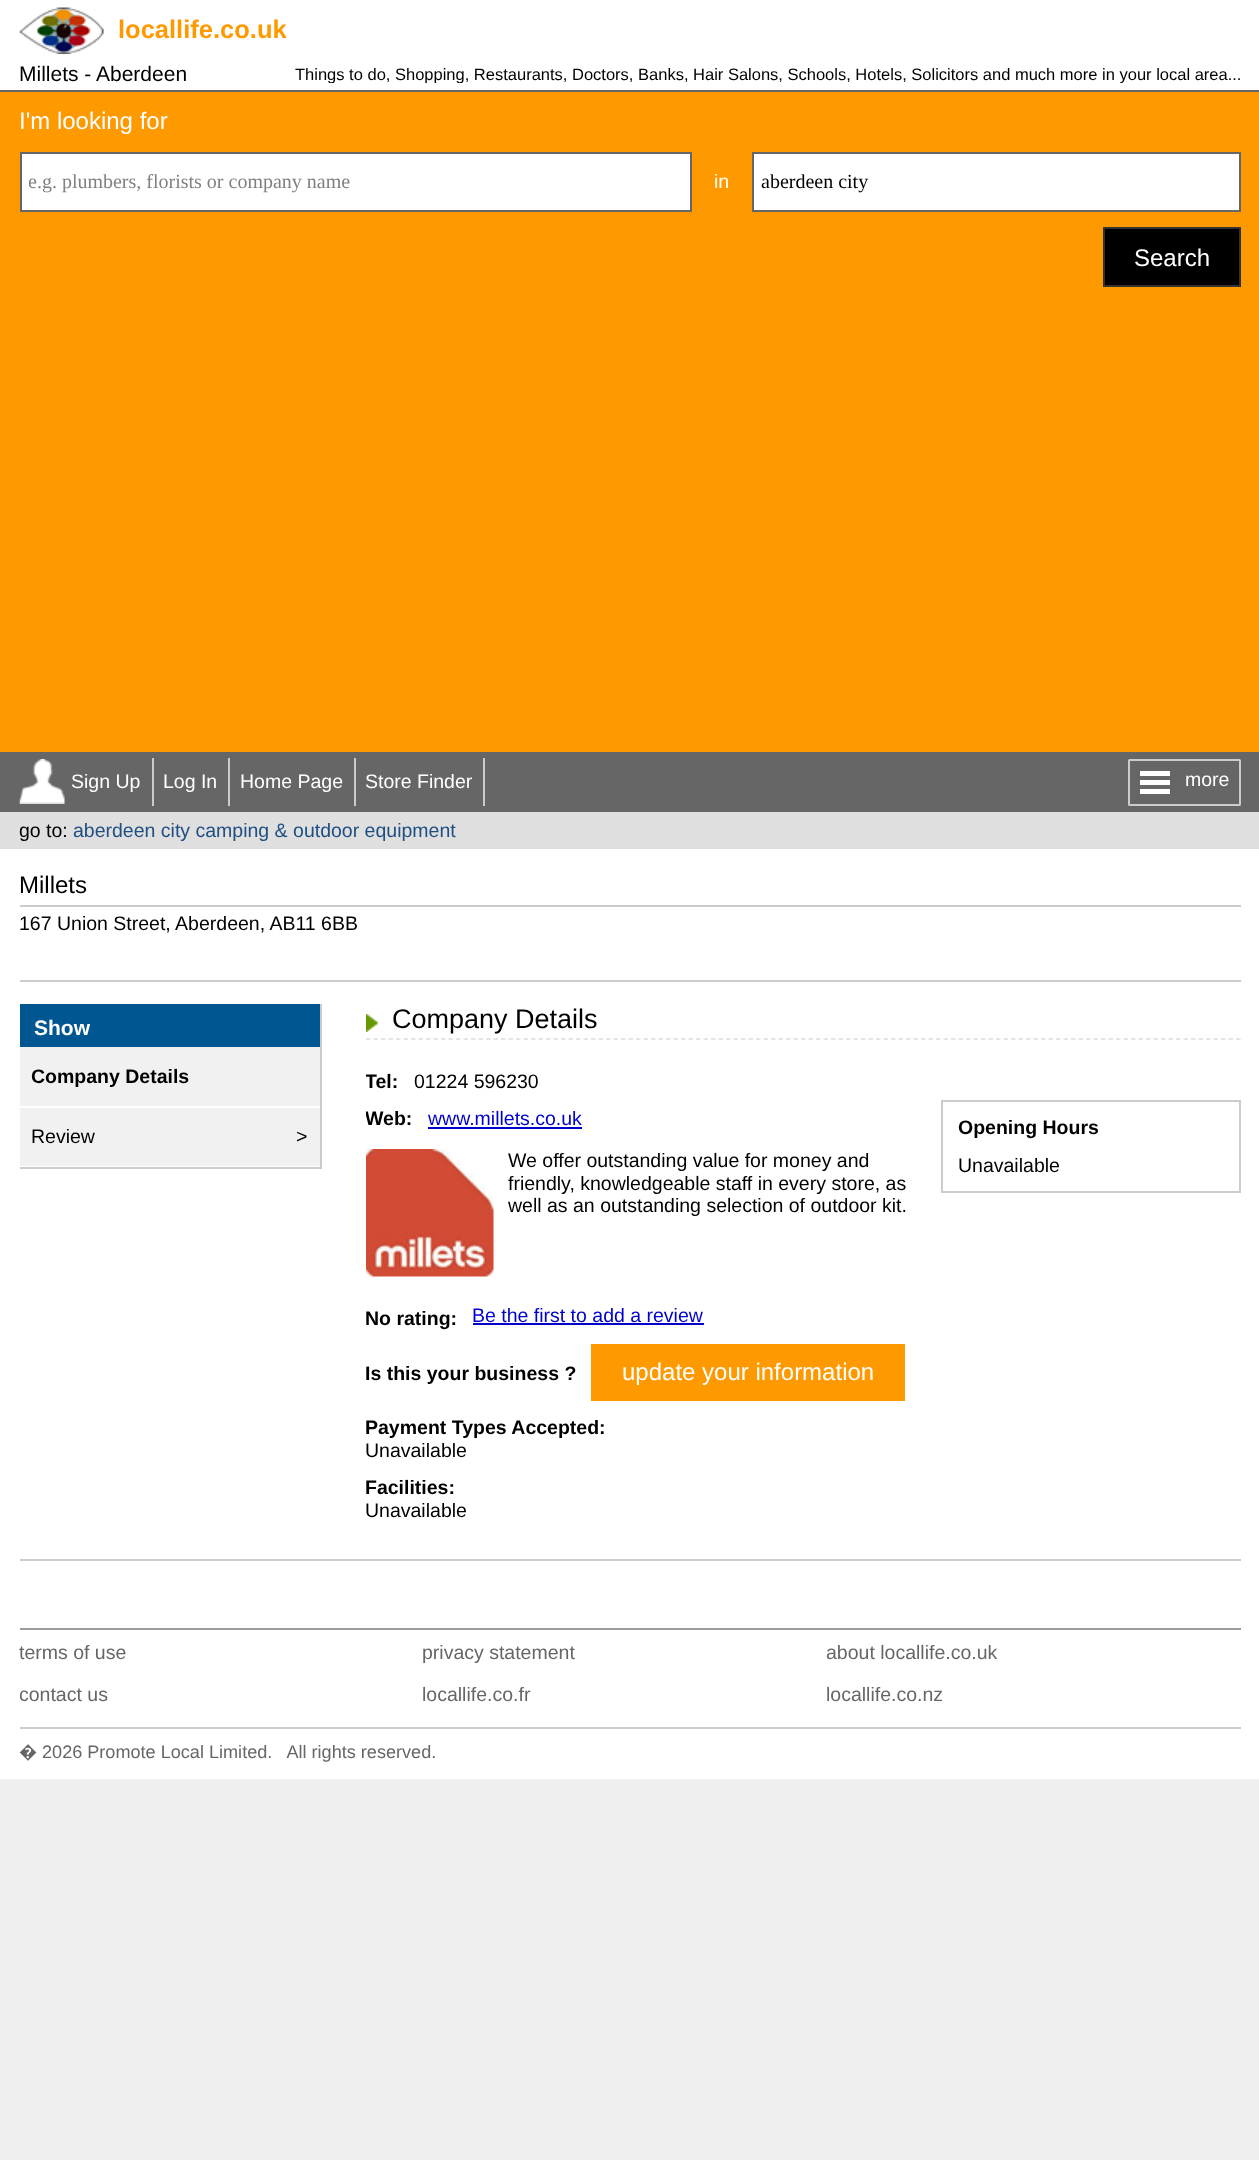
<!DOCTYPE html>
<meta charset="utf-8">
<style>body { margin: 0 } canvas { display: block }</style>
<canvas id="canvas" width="1259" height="2160"></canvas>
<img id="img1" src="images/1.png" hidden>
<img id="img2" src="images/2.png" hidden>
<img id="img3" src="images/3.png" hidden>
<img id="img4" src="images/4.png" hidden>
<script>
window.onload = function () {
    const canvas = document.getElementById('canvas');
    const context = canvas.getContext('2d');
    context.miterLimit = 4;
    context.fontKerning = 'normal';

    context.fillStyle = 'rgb(239, 239, 239)';
    context.fillRect(0, 0, 1259, 2160);
    context.fillStyle = 'rgb(255, 255, 255)';
    context.fillRect(0, 0, 1259, 1779);
    context.drawImage(document.getElementById('img1'), 19, 7, 85, 47);
    context.fillStyle = 'rgb(255, 153, 0)';
    context.fillRect(0, 92, 1259, 660);
    context.fillStyle = 'rgb(102, 102, 102)';
    context.fillRect(0, 90, 1259, 2);
    context.fillStyle = 'rgb(255, 255, 255)';
    context.beginPath();
    context.rect(21, 153, 670, 58);
    context.fill();
    context.strokeStyle = 'rgb(102, 102, 102)';
    context.lineWidth = 2;
    context.stroke();
    context.beginPath();
    context.rect(753, 153, 487, 58);
    context.fill();
    context.stroke();
    context.fillStyle = 'rgb(0, 0, 0)';
    context.beginPath();
    context.rect(1104, 228, 136, 58);
    context.fill();
    context.strokeStyle = 'rgb(51, 51, 51)';
    context.stroke();
    context.fillStyle = 'rgb(102, 102, 102)';
    context.fillRect(0, 752, 1259, 60);
    context.drawImage(document.getElementById('img2'), 19, 759, 46, 45);
    context.fillStyle = 'rgb(204, 204, 204)';
    context.fillRect(152, 758, 2, 48);
    context.fillRect(228, 758, 2, 48);
    context.fillRect(354, 758, 2, 48);
    context.fillRect(483, 758, 2, 48);
    context.beginPath();
    context.roundRect(1129, 760, 111, 45, 0.5);
    context.strokeStyle = 'rgb(204, 204, 204)';
    context.stroke();
    context.fillStyle = 'rgb(255, 255, 255)';
    context.fillRect(1140, 771, 30, 5);
    context.fillRect(1140, 780, 30, 5);
    context.fillRect(1140, 789, 30, 5);
    context.fillStyle = 'rgb(223, 223, 223)';
    context.fillRect(0, 812, 1259, 37);
    context.fillStyle = 'rgb(204, 204, 204)';
    context.fillRect(20, 905, 1221, 2);
    context.fillRect(20, 980, 1221, 2);
    context.fillStyle = 'rgb(241, 241, 241)';
    context.fillRect(20, 1047, 300, 119);
    context.fillStyle = 'rgb(204, 204, 204)';
    context.fillRect(320, 1004, 2, 165);
    context.fillRect(20, 1167, 301, 2);
    context.fillStyle = 'rgb(0, 86, 144)';
    context.fillRect(20, 1004, 300, 43);
    context.fillStyle = 'rgb(255, 255, 255)';
    context.fillRect(20, 1106, 300, 2);
    context.beginPath();
    context.moveTo(366, 1039);
    context.lineTo(1240.5, 1039);
    context.strokeStyle = 'rgb(221, 221, 221)';
    context.lineWidth = 1.5;
    context.setLineDash([4.5, 3]);
    context.stroke();
    context.drawImage(document.getElementById('img3'), 366, 1014, 12, 18);
    context.fillStyle = 'rgb(0, 0, 204)';
    context.fillRect(428, 1127, 154, 2);
    context.drawImage(document.getElementById('img4'), 366, 1149, 128, 128);
    context.fillRect(473, 1323, 231, 2);
    context.fillStyle = 'rgb(255, 153, 0)';
    context.fillRect(591, 1344, 314, 57);
    context.strokeStyle = 'rgb(204, 204, 204)';
    context.lineWidth = 2;
    context.setLineDash([]);
    context.strokeRect(942, 1101, 298, 91);
    context.fillStyle = 'rgb(204, 204, 204)';
    context.fillRect(20, 1559, 1221, 2);
    context.fillStyle = 'rgb(156, 156, 156)';
    context.fillRect(20, 1628, 1221, 2);
    context.fillStyle = 'rgb(204, 204, 204)';
    context.fillRect(20, 1727, 1221, 2);
    context.font = 'bold 25.5px Liberation Sans';
    context.fillStyle = 'rgb(255, 153, 0)';
    context.fillText('locallife.co.uk', 118, 38);
    context.font = '21px Liberation Sans';
    context.fillStyle = 'rgb(0, 0, 0)';
    context.fillText('Millets - Aberdeen', 19, 81);
    context.save();
    context.beginPath();
    context.rect(278, 62, 963, 21);
    context.clip();
    context.font = '16.5px Liberation Sans';
    context.fillText('Things to do, Shopping, Restaurants, Doctors, Banks, Hair Salons, Schools, Hotels, Solicitors and much more in your local area...', 295, 80);
    context.restore();
    context.font = '24px Liberation Sans';
    context.fillStyle = 'rgb(255, 255, 255)';
    context.fillText('I\'m looking for', 19, 129);
    context.save();
    context.beginPath();
    context.rect(29, 170, 654, 24);
    context.clip();
    context.font = '20px Liberation Serif';
    context.fillStyle = 'rgb(128, 128, 128)';
    context.fillText('e.g. plumbers, florists or company name', 28, 188);
    context.restore();
    context.font = '19.5px Liberation Sans';
    context.fillText('in', 714, 188);
    context.font = '20px Liberation Serif';
    context.fillStyle = 'rgb(0, 0, 0)';
    context.fillText('aberdeen city', 761, 188);
    context.font = '24px Liberation Sans';
    context.fillStyle = 'rgb(255, 255, 255)';
    context.fillText('Search', 1134, 266);
    context.font = '19.5px Liberation Sans';
    context.fillText('Sign Up', 71, 788);
    context.fillText('Log In', 163, 788);
    context.fillText('Home Page', 240, 788);
    context.fillText('Store Finder', 365, 788);
    context.fillText('more', 1185, 786);
    context.fillStyle = 'rgb(0, 0, 0)';
    context.fillText('go to:', 19, 837);
    context.fillStyle = 'rgb(31, 79, 130)';
    context.fillText('aberdeen city camping & outdoor equipment', 73, 837);
    context.font = '24px Liberation Sans';
    context.fillStyle = 'rgb(0, 0, 0)';
    context.fillText('Millets', 19, 893);
    context.font = '19.5px Liberation Sans';
    context.fillText('167 Union Street, Aberdeen, AB11 6BB', 19, 930);
    context.font = 'bold 21px Liberation Sans';
    context.fillStyle = 'rgb(255, 255, 255)';
    context.fillText('Show', 34, 1035);
    context.font = 'bold 19.5px Liberation Sans';
    context.fillStyle = 'rgb(0, 0, 0)';
    context.fillText('Company Details', 31, 1083);
    context.font = '19.5px Liberation Sans';
    context.fillText('Review', 31, 1143);
    context.fillText('>', 296, 1143);
    context.font = '27px Liberation Sans';
    context.fillText('Company Details', 392, 1028);
    context.save();
    context.beginPath();
    context.rect(366, 1070, 560, 466);
    context.clip();
    context.font = 'bold 19.5px Liberation Sans';
    context.fillText('Tel:', 365, 1088);
    context.restore();
    context.font = '19.5px Liberation Sans';
    context.fillText('01224 596230', 414, 1088);
    context.save();
    context.beginPath();
    context.rect(366, 1070, 560, 466);
    context.clip();
    context.font = 'bold 19.5px Liberation Sans';
    context.fillText('Web:', 365, 1125);
    context.restore();
    context.fillStyle = 'rgb(0, 0, 204)';
    context.fillText('www.millets.co.uk', 428, 1125);
    context.fillStyle = 'rgb(0, 0, 0)';
    context.fillText('We offer outstanding value for money and', 508, 1167);
    context.fillText('friendly, knowledgeable staff in every store, as', 508, 1190);
    context.fillText('well as an outstanding selection of outdoor kit.', 508, 1212);
    context.font = 'bold 19.5px Liberation Sans';
    context.fillText('No rating:', 365, 1325);
    context.font = '19.5px Liberation Sans';
    context.fillStyle = 'rgb(0, 0, 204)';
    context.fillText('Be the first to add a review', 472, 1322);
    context.font = 'bold 19.5px Liberation Sans';
    context.fillStyle = 'rgb(0, 0, 0)';
    context.fillText('Is this your business ?', 365, 1380);
    context.font = '24px Liberation Sans';
    context.fillStyle = 'rgb(255, 255, 255)';
    context.fillText('update your information', 622, 1380);
    context.font = 'bold 19.5px Liberation Sans';
    context.fillStyle = 'rgb(0, 0, 0)';
    context.fillText('Payment Types Accepted:', 365, 1434);
    context.font = '19.5px Liberation Sans';
    context.fillText('Unavailable', 365, 1457);
    context.font = 'bold 19.5px Liberation Sans';
    context.fillText('Facilities:', 365, 1494);
    context.font = '19.5px Liberation Sans';
    context.fillText('Unavailable', 365, 1517);
    context.font = 'bold 19.5px Liberation Sans';
    context.fillText('Opening Hours', 958, 1134);
    context.font = '19.5px Liberation Sans';
    context.fillText('Unavailable', 958, 1172);
    context.fillStyle = 'rgb(102, 102, 102)';
    context.fillText('terms of use', 19, 1659);
    context.fillText('privacy statement', 422, 1659);
    context.fillText('about locallife.co.uk', 826, 1659);
    context.save();
    context.beginPath();
    context.rect(20, 1632, 1221, 84);
    context.clip();
    context.fillText('contact us', 19, 1701);
    context.restore();
    context.fillText('locallife.co.fr', 422, 1701);
    context.fillText('locallife.co.nz', 826, 1701);
    context.font = '18.1px Noto Sans';
    context.fillText('�', 19, 1758);
    context.font = '18.1px Liberation Sans';
    context.fillText('2026 Promote Local Limited.   All rights reserved.', 42, 1758);
};
</script>
